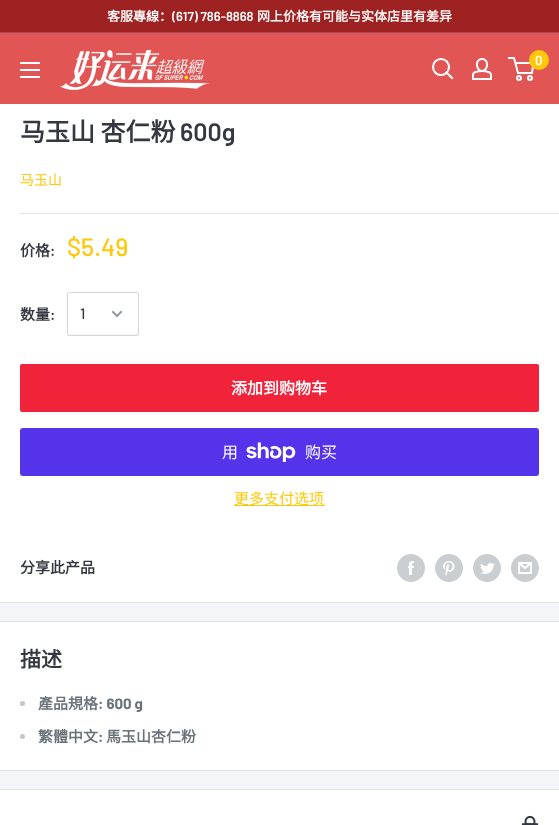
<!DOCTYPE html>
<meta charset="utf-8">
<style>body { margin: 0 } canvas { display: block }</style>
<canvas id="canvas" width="559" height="825"></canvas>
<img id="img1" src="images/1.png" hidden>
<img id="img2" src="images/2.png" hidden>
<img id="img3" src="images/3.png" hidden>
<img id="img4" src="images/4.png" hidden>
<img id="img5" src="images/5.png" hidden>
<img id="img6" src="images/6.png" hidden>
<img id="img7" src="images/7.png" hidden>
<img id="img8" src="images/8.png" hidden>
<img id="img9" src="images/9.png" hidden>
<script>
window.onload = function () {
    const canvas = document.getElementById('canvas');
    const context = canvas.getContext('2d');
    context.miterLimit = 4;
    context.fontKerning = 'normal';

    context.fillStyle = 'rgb(243, 245, 246)';
    context.fillRect(0, 0, 559, 825);
    context.fillStyle = 'rgb(159, 34, 34)';
    context.fillRect(0, 0, 559, 32);
    context.fillStyle = 'rgb(160, 76, 96)';
    context.fillRect(0, 32, 559, 1);
    context.fillStyle = 'rgb(225, 85, 85)';
    context.fillRect(0, 33, 559, 71);
    context.drawImage(document.getElementById('img1'), 60, 50, 150, 40);
    context.beginPath();
    context.moveTo(452, 78);
    context.lineTo(446.5, 72.5);
    context.strokeStyle = 'rgb(255, 255, 255)';
    context.lineWidth = 2.1;
    context.lineCap = 'square';
    context.stroke();
    context.beginPath();
    context.arc(441, 67, 8, 0, 2 * Math.PI);
    context.stroke();
    context.drawImage(document.getElementById('img2'), 472, 58, 20, 22);
    context.beginPath();
    context.arc(519, 78, 2, 0, 2 * Math.PI);
    context.lineWidth = 2;
    context.stroke();
    context.beginPath();
    context.arc(530, 78, 2, 0, 2 * Math.PI);
    context.stroke();
    context.beginPath();
    context.moveTo(515.5, 63);
    context.lineTo(533.5, 63);
    context.lineTo(532, 73);
    context.lineTo(518, 73);
    context.lineTo(514, 58);
    context.lineTo(508, 58);
    context.lineCap = 'butt';
    context.stroke();
    context.fillStyle = 'rgb(255, 200, 8)';
    context.beginPath();
    context.arc(539, 60, 10, 0, 2 * Math.PI);
    context.fill();
    context.drawImage(document.getElementById('img3'), 20, 62, 20, 16);
    context.fillStyle = 'rgb(255, 255, 255)';
    context.fillRect(0, 104, 559, 498);
    context.fillStyle = 'rgb(225, 227, 228)';
    context.fillRect(0, 602, 559, 1);
    context.fillRect(20, 213, 539, 1);
    context.fillStyle = 'rgb(242, 243, 243)';
    context.beginPath();
    context.moveTo(68, 333);
    context.bezierCurveTo(68, 334, 68, 335, 69, 335);
    context.lineTo(126, 335);
    context.bezierCurveTo(129, 335, 138, 338, 138, 333);
    context.lineTo(137, 334);
    context.lineTo(73, 334);
    context.bezierCurveTo(72, 334, 69, 335, 68, 333);
    context.closePath();
    context.fill();
    context.beginPath();
    context.roundRect(67.5, 292.5, 71, 43, 1.5);
    context.strokeStyle = 'rgb(212, 214, 216)';
    context.lineWidth = 1;
    context.stroke();
    context.beginPath();
    context.moveTo(121, 312);
    context.lineTo(117, 316);
    context.lineTo(113, 312);
    context.strokeStyle = 'rgb(149, 156, 161)';
    context.lineWidth = 2;
    context.lineCap = 'square';
    context.stroke();
    context.fillStyle = 'rgb(240, 35, 59)';
    context.beginPath();
    context.roundRect(20, 364, 519, 48, 2);
    context.fill();
    context.fillStyle = 'rgb(84, 51, 235)';
    context.beginPath();
    context.roundRect(20, 428, 519, 48, 3);
    context.fill();
    context.drawImage(document.getElementById('img4'), 246, 442, 50, 20);
    context.fillStyle = 'rgb(255, 200, 8)';
    context.fillRect(234, 505, 91, 1);
    context.drawImage(document.getElementById('img5'), 397, 554, 28, 28);
    context.drawImage(document.getElementById('img6'), 435, 554, 28, 28);
    context.drawImage(document.getElementById('img7'), 473, 554, 28, 28);
    context.drawImage(document.getElementById('img8'), 511, 554, 28, 28);
    context.fillStyle = 'rgb(255, 255, 255)';
    context.fillRect(0, 622, 559, 148);
    context.fillStyle = 'rgb(225, 227, 228)';
    context.fillRect(0, 621, 559, 1);
    context.fillRect(0, 770, 559, 1);
    context.fillStyle = 'rgb(194, 199, 201)';
    context.beginPath();
    context.arc(22.5, 703.5, 2.5, 0, 2 * Math.PI);
    context.fill();
    context.beginPath();
    context.arc(22.5, 736.5, 2.5, 0, 2 * Math.PI);
    context.fill();
    context.fillStyle = 'rgb(255, 255, 255)';
    context.fillRect(0, 790, 559, 35);
    context.fillStyle = 'rgb(225, 227, 228)';
    context.fillRect(0, 789, 559, 1);
    context.drawImage(document.getElementById('img9'), 521, 815, 18, 10);
    context.font = 'bold 13px Noto Sans CJK SC';
    context.fillStyle = 'rgb(255, 255, 255)';
    context.fillText('客服專線：', 107, 21);
    context.font = '600 13px Barlow';
    context.fillText('(617) 786-8868', 172, 21);
    context.font = 'bold 13px Noto Sans CJK SC';
    context.fillText('网上价格有可能与实体店里有差异', 257, 21);
    context.font = '600 13px Barlow';
    context.fillText('0', 535, 65);
    context.font = 'bold 25px Noto Sans CJK SC';
    context.fillStyle = 'rgb(54, 56, 65)';
    context.fillText('马玉山 杏仁粉', 20, 141);
    context.font = '600 25px Barlow';
    context.fillText('600g', 180, 141);
    context.font = '14px Noto Sans CJK SC';
    context.fillStyle = 'rgb(255, 200, 8)';
    context.fillText('马玉山', 20, 185);
    context.font = 'bold 15px Noto Sans CJK SC';
    context.fillStyle = 'rgb(54, 56, 65)';
    context.fillText('价格', 20, 256);
    context.font = '600 15px Barlow';
    context.fillText(':', 50, 256);
    context.font = '500 25px Barlow';
    context.fillStyle = 'rgb(255, 200, 8)';
    context.fillText('$5.49', 67, 256);
    context.font = 'bold 15px Noto Sans CJK SC';
    context.fillStyle = 'rgb(54, 56, 65)';
    context.fillText('数量', 20, 320);
    context.font = '600 15px Barlow';
    context.fillText(':', 50, 320);
    context.font = '500 15px Barlow';
    context.fillText('1', 80, 319);
    context.font = 'bold 16px Noto Sans CJK SC';
    context.fillStyle = 'rgb(255, 255, 255)';
    context.fillText('添加到购物车', 231, 394);
    context.font = '16px Noto Sans CJK SC';
    context.fillText('用', 222, 458);
    context.fillText('购买', 305, 458);
    context.font = '15px Noto Sans CJK SC';
    context.fillStyle = 'rgb(255, 200, 8)';
    context.fillText('更多支付选项', 234, 504);
    context.font = 'bold 15px Noto Sans CJK SC';
    context.fillStyle = 'rgb(54, 56, 65)';
    context.fillText('分享此产品', 20, 573);
    context.font = 'bold 21px Noto Sans CJK SC';
    context.fillText('描述', 20, 667);
    context.font = 'bold 15px Noto Sans CJK SC';
    context.fillStyle = 'rgb(103, 114, 121)';
    context.fillText('產品規格', 38, 709);
    context.font = 'bold 15px Barlow';
    context.fillText(': 600 g', 98, 709);
    context.font = 'bold 15px Noto Sans CJK SC';
    context.fillText('繁體中文', 38, 742);
    context.font = 'bold 15px Barlow';
    context.fillText(':', 98, 742);
    context.font = 'bold 15px Noto Sans CJK SC';
    context.fillText('馬玉山杏仁粉', 106, 742);
};
</script>
